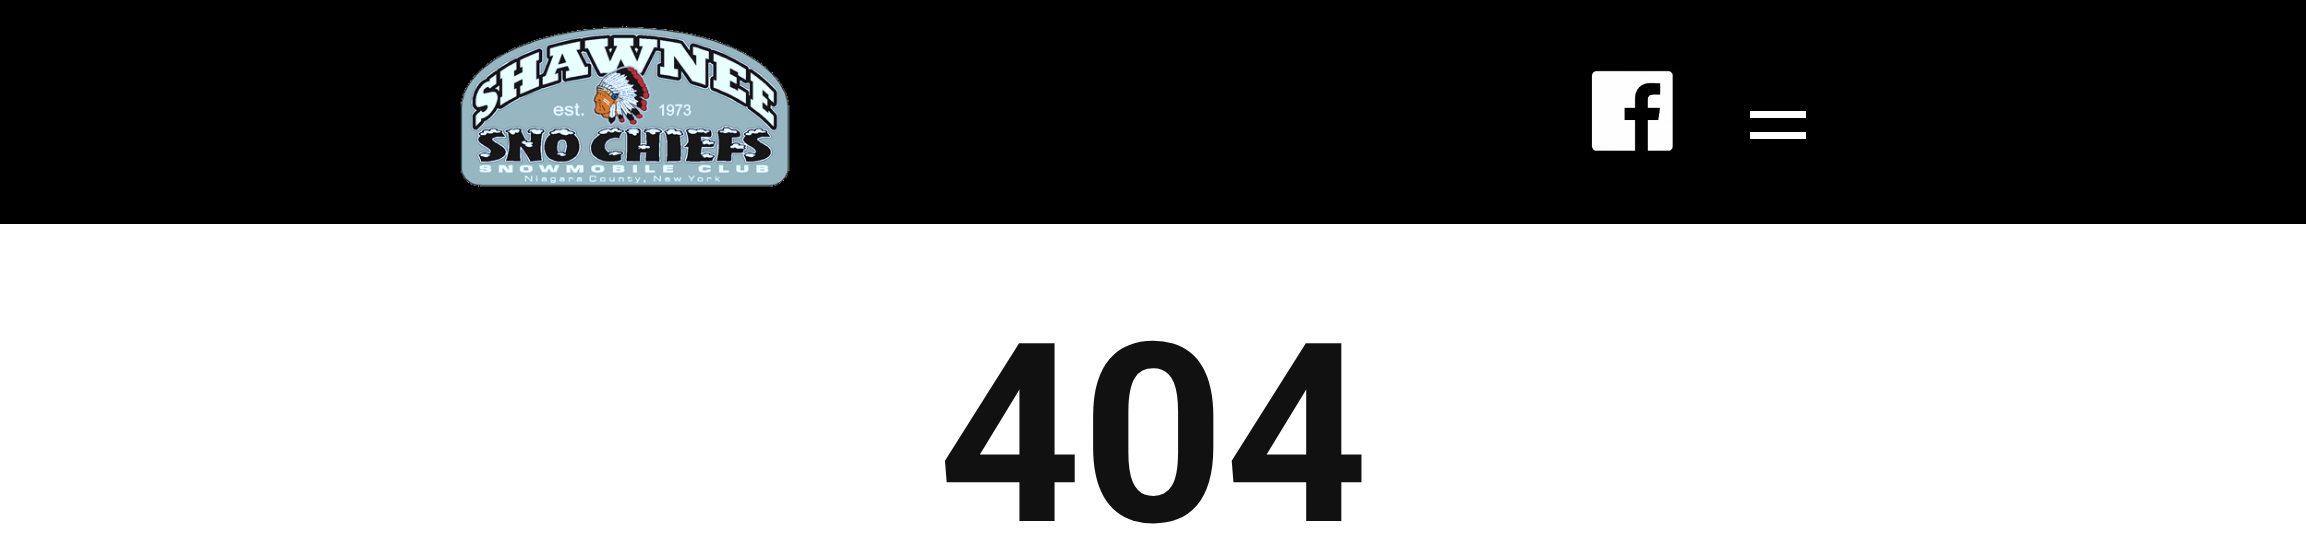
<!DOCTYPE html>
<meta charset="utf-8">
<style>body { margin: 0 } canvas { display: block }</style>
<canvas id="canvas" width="2306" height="548"></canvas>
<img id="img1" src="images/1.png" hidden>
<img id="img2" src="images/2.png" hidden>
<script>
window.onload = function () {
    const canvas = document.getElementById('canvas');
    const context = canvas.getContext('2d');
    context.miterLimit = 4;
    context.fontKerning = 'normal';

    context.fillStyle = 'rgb(255, 255, 255)';
    context.fillRect(0, 0, 2306, 548);
    context.fillStyle = 'rgb(0, 0, 0)';
    context.fillRect(0, 0, 2306, 224);
    context.drawImage(document.getElementById('img1'), 460, 26, 330, 161);
    context.drawImage(document.getElementById('img2'), 1591, 66, 87, 85);
    context.fillStyle = 'rgb(255, 255, 255)';
    context.fillRect(1750, 111, 56, 7);
    context.fillRect(1750, 132, 56, 7);
    context.font = 'bold 250px Roboto';
    context.fillStyle = 'rgb(17, 17, 17)';
    context.fillText('404', 938, 521);
};
</script>
